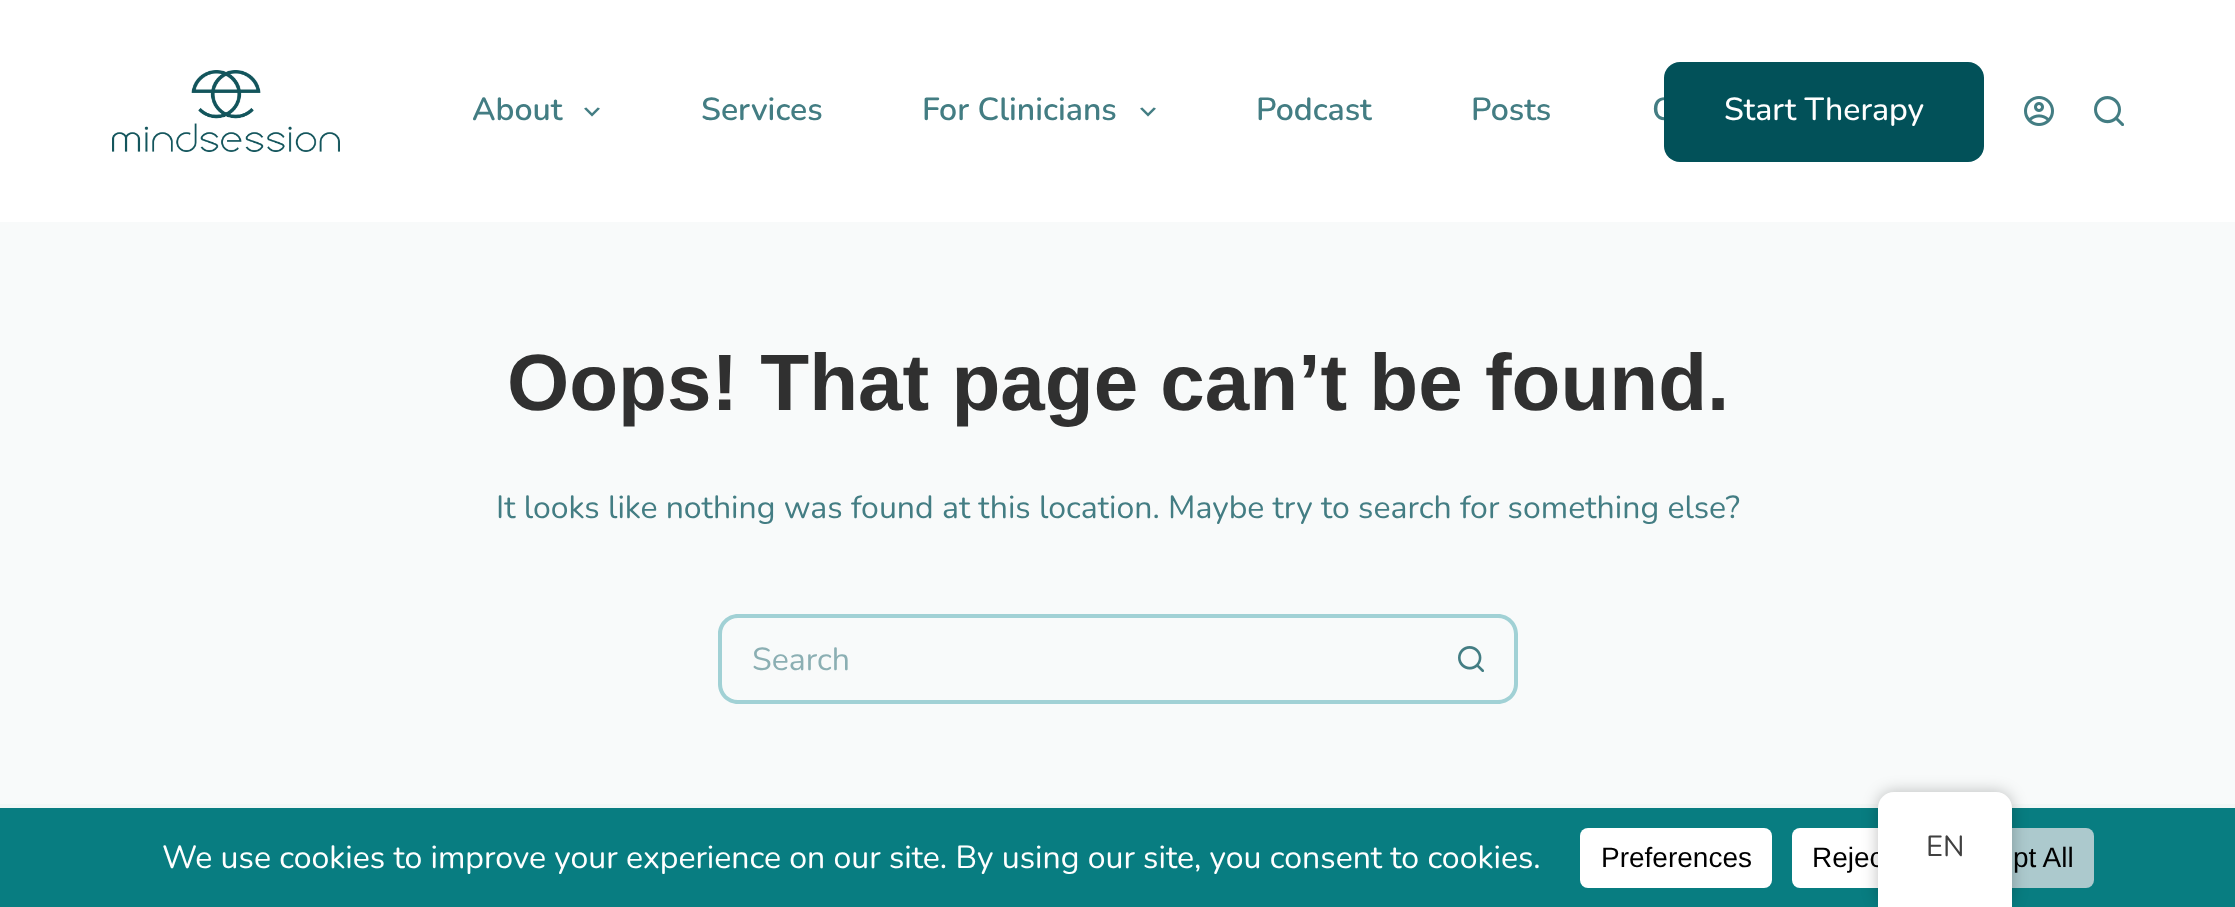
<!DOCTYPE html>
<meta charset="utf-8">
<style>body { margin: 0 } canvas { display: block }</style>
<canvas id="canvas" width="2235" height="907"></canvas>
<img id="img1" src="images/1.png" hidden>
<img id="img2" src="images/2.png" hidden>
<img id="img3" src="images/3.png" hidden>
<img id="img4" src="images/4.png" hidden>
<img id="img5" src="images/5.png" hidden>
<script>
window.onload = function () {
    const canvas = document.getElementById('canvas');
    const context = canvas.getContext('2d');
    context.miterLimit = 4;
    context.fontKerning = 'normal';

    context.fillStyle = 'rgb(248, 250, 250)';
    context.fillRect(0, 0, 2235, 907);
    context.fillStyle = 'rgb(255, 255, 255)';
    context.fillRect(0, 0, 2235, 222);
    context.drawImage(document.getElementById('img1'), 112, 70, 228, 82);
    context.drawImage(document.getElementById('img2'), 584, 107, 16, 10);
    context.drawImage(document.getElementById('img2'), 1140, 107, 16, 10);
    context.drawImage(document.getElementById('img3'), 2024, 96, 30, 30);
    context.drawImage(document.getElementById('img4'), 2094, 96, 30, 30);
    context.fillStyle = 'rgb(161, 209, 213)';
    context.beginPath();
    context.moveTo(738, 614);
    context.lineTo(1428, 614);
    context.lineTo(1428, 704);
    context.lineTo(738, 704);
    context.bezierCurveTo(727, 704, 718, 695, 718, 684);
    context.lineTo(718, 634);
    context.bezierCurveTo(718, 623, 727, 614, 738, 614);
    context.closePath();
    context.moveTo(738, 618);
    context.lineTo(1428, 618);
    context.lineTo(1428, 700);
    context.lineTo(738, 700);
    context.bezierCurveTo(729, 700, 722, 693, 722, 684);
    context.lineTo(722, 634);
    context.bezierCurveTo(722, 625, 729, 618, 738, 618);
    context.closePath();
    context.fill('evenodd');
    context.beginPath();
    context.moveTo(1428, 614);
    context.lineTo(1498, 614);
    context.bezierCurveTo(1509, 614, 1518, 623, 1518, 634);
    context.lineTo(1518, 684);
    context.bezierCurveTo(1518, 695, 1509, 704, 1498, 704);
    context.lineTo(1428, 704);
    context.closePath();
    context.moveTo(1428, 618);
    context.lineTo(1498, 618);
    context.bezierCurveTo(1507, 618, 1514, 625, 1514, 634);
    context.lineTo(1514, 684);
    context.bezierCurveTo(1514, 693, 1507, 700, 1498, 700);
    context.lineTo(1428, 700);
    context.closePath();
    context.fill('evenodd');
    context.drawImage(document.getElementById('img5'), 1458, 646, 26, 26);
    context.fillStyle = 'rgb(242, 247, 246)';
    context.fillRect(0, 804, 2235, 4);
    context.fillStyle = 'rgb(8, 125, 129)';
    context.fillRect(0, 808, 2235, 99);
    context.fillStyle = 'rgb(255, 255, 255)';
    context.beginPath();
    context.roundRect(1792, 828, 118, 60, 8);
    context.fill();
    context.fillStyle = 'rgb(172, 201, 205)';
    context.beginPath();
    context.roundRect(1930, 828, 164, 60, 8);
    context.fill();
    context.fillStyle = 'rgba(0, 0, 0, 0.25)';
    context.filter = 'blur(8px)';
    context.beginPath();
    context.roundRect(1878, 792, 134, 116, 16);
    context.fill();
    context.filter = 'none';
    context.fillStyle = 'rgb(255, 255, 255)';
    context.beginPath();
    context.roundRect(1580, 828, 192, 60, 8);
    context.fill();
    context.font = '600 32px Nunito';
    context.fillStyle = 'rgb(67, 125, 131)';
    context.fillText('About', 472, 120);
    context.fillText('Services', 701, 120);
    context.fillText('For Clinicians', 922, 120);
    context.fillText('Podcast', 1256, 120);
    context.fillText('Posts', 1471, 120);
    context.fillText('C', 1652, 120);
    context.fillStyle = 'rgb(2, 81, 89)';
    context.beginPath();
    context.roundRect(1664, 62, 320, 100, 16);
    context.fill();
    context.font = '500 32px Nunito';
    context.fillStyle = 'rgb(255, 255, 255)';
    context.fillText('Start Therapy', 1724, 120);
    context.font = 'bold 80px Liberation Sans';
    context.fillStyle = 'rgb(48, 48, 48)';
    context.fillText('Oops! That page can’t be found.', 507, 410);
    context.font = '32px Nunito';
    context.fillStyle = 'rgb(67, 125, 131)';
    context.fillText('It looks like nothing was found at this location. Maybe try to search for something else?', 496, 518);
    context.fillStyle = 'rgb(139, 175, 179)';
    context.fillText('Search', 752, 670);
    context.fillStyle = 'rgb(255, 255, 255)';
    context.fillText('We use cookies to improve your experience on our site. By using our site, you consent to cookies.', 162, 868);
    context.font = '28px Liberation Sans';
    context.fillStyle = 'rgb(0, 0, 0)';
    context.fillText('Preferences', 1601, 867);
    context.fillText('Rejec', 1812, 867);
    context.fillStyle = 'rgb(255, 255, 255)';
    context.beginPath();
    context.moveTo(1894, 792);
    context.lineTo(1996, 792);
    context.bezierCurveTo(2005, 792, 2012, 799, 2012, 808);
    context.lineTo(2012, 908);
    context.lineTo(1878, 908);
    context.lineTo(1878, 808);
    context.bezierCurveTo(1878, 799, 1885, 792, 1894, 792);
    context.closePath();
    context.fill();
    context.font = '29px Nunito';
    context.fillStyle = 'rgb(64, 64, 64)';
    context.fillText('EN', 1926, 856);
    context.font = '28px Liberation Sans';
    context.fillStyle = 'rgb(0, 0, 0)';
    context.fillText('pt All', 2013, 867);
};
</script>
